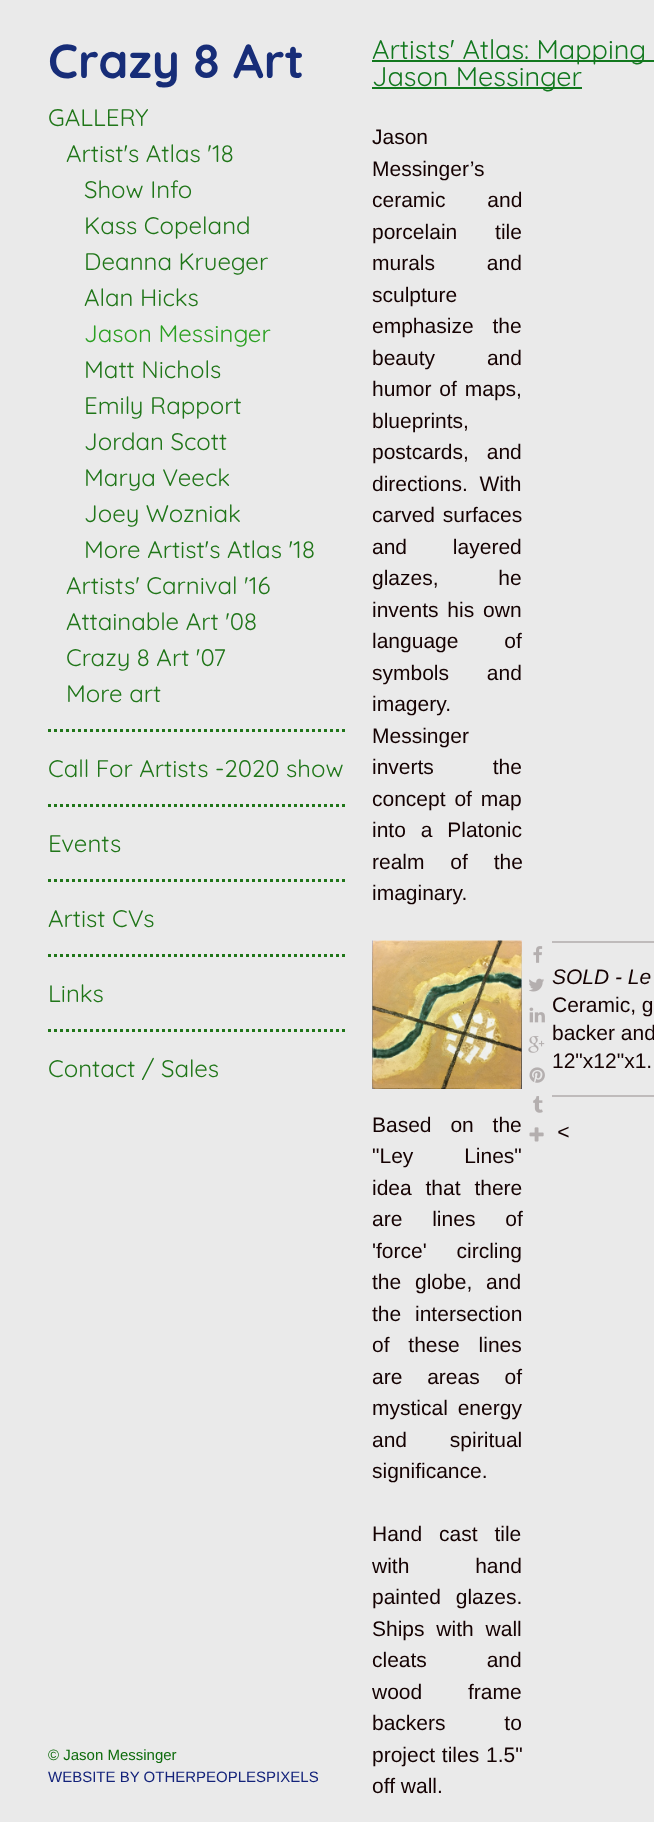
<!DOCTYPE html>
<meta charset="utf-8">
<style>body { margin: 0 } canvas { display: block }</style>
<canvas id="canvas" width="654" height="1822"></canvas>
<img id="img1" src="images/1.png" hidden>
<img id="img2" src="images/2.png" hidden>
<img id="img3" src="images/3.png" hidden>
<img id="img4" src="images/4.png" hidden>
<img id="img5" src="images/5.png" hidden>
<img id="img6" src="images/6.png" hidden>
<img id="img7" src="images/7.png" hidden>
<img id="img8" src="images/8.png" hidden>
<img id="img9" src="images/9.png" hidden>
<script>
window.onload = function () {
    const canvas = document.getElementById('canvas');
    const context = canvas.getContext('2d');
    context.miterLimit = 4;
    context.fontKerning = 'normal';

    context.fillStyle = 'rgb(234, 234, 234)';
    context.fillRect(0, 0, 654, 1822);
    context.drawImage(document.getElementById('img1'), 48, 729, 297, 3);
    context.drawImage(document.getElementById('img1'), 48, 804, 297, 3);
    context.drawImage(document.getElementById('img1'), 48, 879, 297, 3);
    context.drawImage(document.getElementById('img1'), 48, 954, 297, 3);
    context.drawImage(document.getElementById('img1'), 48, 1029, 297, 3);
    context.fillStyle = 'rgb(18, 120, 30)';
    context.fillRect(372, 60, 282, 2);
    context.fillRect(372, 87, 210, 2);
    context.drawImage(document.getElementById('img2'), 372, 940, 150, 149);
    context.drawImage(document.getElementById('img3'), 533, 946, 10, 17);
    context.drawImage(document.getElementById('img4'), 529, 978, 15, 14);
    context.drawImage(document.getElementById('img5'), 529, 1007, 16, 16);
    context.drawImage(document.getElementById('img6'), 528, 1036, 17, 17);
    context.drawImage(document.getElementById('img7'), 529, 1067, 16, 16);
    context.drawImage(document.getElementById('img8'), 533, 1096, 10, 17);
    context.drawImage(document.getElementById('img9'), 529, 1127, 15, 15);
    context.fillStyle = 'rgb(191, 187, 187)';
    context.fillRect(552, 941, 102, 2);
    context.fillRect(552, 1095, 102, 2);
    context.font = '300 48px Quicksand';
    context.fillStyle = 'rgb(23, 45, 120)';
    context.fillText('Crazy 8 Art', 48, 78);
    context.font = '300 24px "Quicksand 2"';
    context.fillStyle = 'rgb(32, 118, 25)';
    context.fillText('GALLERY', 48, 126);
    context.fillText('Artist\'s Atlas \'18', 66, 162);
    context.fillText('Show Info', 84, 198);
    context.fillText('Kass Copeland', 84, 234);
    context.fillText('Deanna Krueger', 84, 270);
    context.fillText('Alan Hicks', 84, 306);
    context.fillStyle = 'rgb(43, 160, 34)';
    context.fillText('Jason Messinger', 84, 342);
    context.fillStyle = 'rgb(32, 118, 25)';
    context.fillText('Matt Nichols', 84, 378);
    context.fillText('Emily Rapport', 84, 414);
    context.fillText('Jordan Scott', 84, 450);
    context.fillText('Marya Veeck', 84, 486);
    context.fillText('Joey Wozniak', 84, 522);
    context.fillText('More Artist\'s Atlas \'18', 84, 558);
    context.fillText('Artists\' Carnival \'16', 66, 594);
    context.fillText('Attainable Art \'08', 66, 630);
    context.fillText('Crazy 8 Art \'07', 66, 666);
    context.fillText('More art', 66, 702);
    context.fillText('Call For Artists -2020 show', 48, 777);
    context.fillText('Events', 48, 852);
    context.fillText('Artist CVs', 48, 927);
    context.fillText('Links', 48, 1002);
    context.fillText('Contact / Sales', 48, 1077);
    context.font = '15px Liberation Sans';
    context.fillStyle = 'rgb(13, 107, 11)';
    context.fillText('© Jason Messinger', 48, 1760);
    context.fillStyle = 'rgb(20, 35, 123)';
    context.fillText('WEBSITE BY OTHERPEOPLESPIXELS', 48, 1782);
    context.font = '300 27px "Quicksand 2"';
    context.fillStyle = 'rgb(18, 120, 30)';
    context.fillText('Artists\' Atlas: Mapping', 372, 59);
    context.fillText('Jason Messinger', 372, 86);
    context.font = '21px Liberation Sans';
    context.fillStyle = 'rgb(20, 1, 1)';
    context.fillText('Jason', 372, 144);
    context.fillText('Messinger’s', 372, 176);
    context.wordSpacing = '36px';
    context.fillText('ceramic and', 372, 207);
    context.wordSpacing = '32px';
    context.fillText('porcelain tile', 372, 239);
    context.wordSpacing = '46px';
    context.fillText('murals and', 372, 270);
    context.wordSpacing = '0px';
    context.fillText('sculpture', 372, 302);
    context.wordSpacing = '13px';
    context.fillText('emphasize the', 372, 333);
    context.wordSpacing = '46px';
    context.fillText('beauty and', 372, 365);
    context.wordSpacing = '2px';
    context.fillText('humor of maps,', 372, 396);
    context.wordSpacing = '0px';
    context.fillText('blueprints,', 372, 428);
    context.wordSpacing = '12px';
    context.fillText('postcards, and', 372, 459);
    context.wordSpacing = '6px';
    context.fillText('directions. With', 372, 491);
    context.wordSpacing = '2px';
    context.fillText('carved surfaces', 372, 522);
    context.wordSpacing = '40px';
    context.fillText('and layered', 372, 554);
    context.wordSpacing = '54px';
    context.fillText('glazes, he', 372, 585);
    context.wordSpacing = '3px';
    context.fillText('invents his own', 372, 617);
    context.wordSpacing = '40px';
    context.fillText('language of', 372, 648);
    context.wordSpacing = '32px';
    context.fillText('symbols and', 372, 680);
    context.wordSpacing = '0px';
    context.fillText('imagery.', 372, 711);
    context.fillText('Messinger', 372, 743);
    context.wordSpacing = '53px';
    context.fillText('inverts the', 372, 774);
    context.wordSpacing = '3px';
    context.fillText('concept of map', 372, 806);
    context.wordSpacing = '9px';
    context.fillText('into a Platonic', 372, 837);
    context.wordSpacing = '20px';
    context.fillText('realm of the', 372, 869);
    context.wordSpacing = '0px';
    context.fillText('imaginary.', 372, 900);
    context.font = 'italic 21px Liberation Sans';
    context.fillText('SOLD - Le', 552, 984);
    context.font = '21px Liberation Sans';
    context.fillText('Ceramic, g', 552, 1012);
    context.fillText('backer and', 552, 1040);
    context.fillText('12"x12"x1.', 552, 1068);
    context.letterSpacing = '2px';
    context.font = 'italic 21px Liberation Sans';
    context.fillText('<', 557, 1139);
    context.letterSpacing = '0px';
    context.wordSpacing = '13px';
    context.font = '21px Liberation Sans';
    context.fillText('Based on the', 372, 1132);
    context.wordSpacing = '45px';
    context.fillText('"Ley Lines"', 372, 1163);
    context.wordSpacing = '8px';
    context.fillText('idea that there', 372, 1195);
    context.wordSpacing = '24px';
    context.fillText('are lines of', 372, 1226);
    context.fillText('\'force\' circling', 372, 1258);
    context.wordSpacing = '8px';
    context.fillText('the globe, and', 372, 1289);
    context.fillText('the intersection', 372, 1321);
    context.wordSpacing = '13px';
    context.fillText('of these lines', 372, 1352);
    context.wordSpacing = '19px';
    context.fillText('are areas of', 372, 1384);
    context.wordSpacing = '4px';
    context.fillText('mystical energy', 372, 1415);
    context.wordSpacing = '37px';
    context.fillText('and spiritual', 372, 1447);
    context.wordSpacing = '0px';
    context.fillText('significance.', 372, 1478);
    context.wordSpacing = '11px';
    context.fillText('Hand cast tile', 372, 1541);
    context.wordSpacing = '60px';
    context.fillText('with hand', 372, 1573);
    context.wordSpacing = '9px';
    context.fillText('painted glazes.', 372, 1604);
    context.wordSpacing = '6px';
    context.fillText('Ships with wall', 372, 1636);
    context.wordSpacing = '54px';
    context.fillText('cleats and', 372, 1667);
    context.wordSpacing = '40px';
    context.fillText('wood frame', 372, 1699);
    context.wordSpacing = '53px';
    context.fillText('backers to', 372, 1730);
    context.wordSpacing = '1px';
    context.fillText('project tiles 1.5"', 372, 1762);
    context.wordSpacing = '0px';
    context.fillText('off wall.', 372, 1793);
};
</script>
